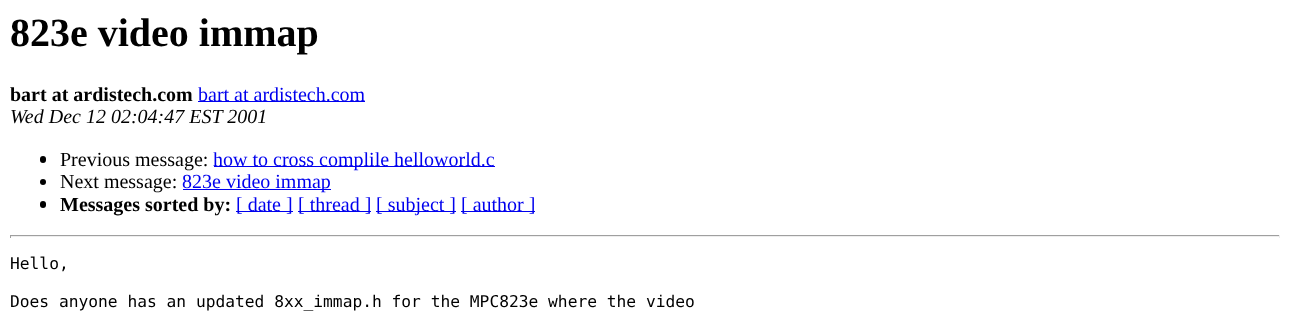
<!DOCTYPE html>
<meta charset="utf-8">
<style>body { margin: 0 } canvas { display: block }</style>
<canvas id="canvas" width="1289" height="320"></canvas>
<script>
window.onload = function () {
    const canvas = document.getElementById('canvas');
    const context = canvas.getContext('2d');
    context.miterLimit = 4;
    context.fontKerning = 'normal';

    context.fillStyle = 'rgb(255, 255, 255)';
    context.fillRect(0, 0, 1289, 320);
    context.fillStyle = 'rgb(0, 0, 238)';
    context.fillRect(198, 101, 167, 1);
    context.fillStyle = 'rgb(0, 0, 0)';
    context.beginPath();
    context.roundRect(40, 156, 6, 7, 3);
    context.fill();
    context.fillStyle = 'rgb(0, 0, 238)';
    context.fillRect(214, 166, 281, 1);
    context.fillStyle = 'rgb(0, 0, 0)';
    context.beginPath();
    context.arc(43, 182, 3, 0, 2 * Math.PI);
    context.fill();
    context.fillStyle = 'rgb(0, 0, 238)';
    context.fillRect(183, 189, 148, 1);
    context.fillStyle = 'rgb(0, 0, 0)';
    context.beginPath();
    context.roundRect(40, 201, 6, 7, 3);
    context.fill();
    context.fillStyle = 'rgb(0, 0, 238)';
    context.fillRect(236, 211, 57, 1);
    context.fillRect(298, 211, 73, 1);
    context.fillRect(376, 211, 80, 1);
    context.fillRect(461, 211, 74, 1);
    context.fillStyle = 'rgb(159, 159, 159)';
    context.fillRect(10, 235, 1270, 1);
    context.fillStyle = 'rgb(238, 238, 238)';
    context.fillRect(1279, 235, 1, 3);
    context.fillRect(10, 236, 1270, 1);
    context.fillStyle = 'rgb(159, 159, 159)';
    context.fillRect(10, 235, 1, 3);
    context.font = 'bold 40px Liberation Serif';
    context.fillStyle = 'rgb(0, 0, 0)';
    context.fillText('823e video immap', 10, 46);
    context.font = 'bold 20px Liberation Serif';
    context.fillText('bart at ardistech.com', 10, 101);
    context.font = '20px Liberation Serif';
    context.fillStyle = 'rgb(0, 0, 238)';
    context.fillText('bart at ardistech.com', 198, 101);
    context.font = 'italic 20px Liberation Serif';
    context.fillStyle = 'rgb(0, 0, 0)';
    context.fillText('Wed Dec 12 02:04:47 EST 2001', 10, 123);
    context.font = '20px Liberation Serif';
    context.fillText('Previous message:', 60, 166);
    context.fillStyle = 'rgb(0, 0, 238)';
    context.fillText('how to cross complile helloworld.c', 213, 166);
    context.fillStyle = 'rgb(0, 0, 0)';
    context.fillText('Next message:', 60, 188);
    context.fillStyle = 'rgb(0, 0, 238)';
    context.fillText('823e video immap', 182, 188);
    context.font = 'bold 20px Liberation Serif';
    context.fillStyle = 'rgb(0, 0, 0)';
    context.fillText('Messages sorted by:', 60, 211);
    context.font = '20px Liberation Serif';
    context.fillStyle = 'rgb(0, 0, 238)';
    context.fillText('[ date ]', 236, 211);
    context.fillText('[ thread ]', 298, 211);
    context.fillText('[ subject ]', 376, 211);
    context.fillText('[ author ]', 461, 211);
    context.font = '16.25px DejaVu Sans Mono';
    context.fillStyle = 'rgb(0, 0, 0)';
    context.fillText('Hello,', 10, 269);
    context.fillText('Does anyone has an updated 8xx_immap.h for the MPC823e where the video', 10, 307);
};
</script>
